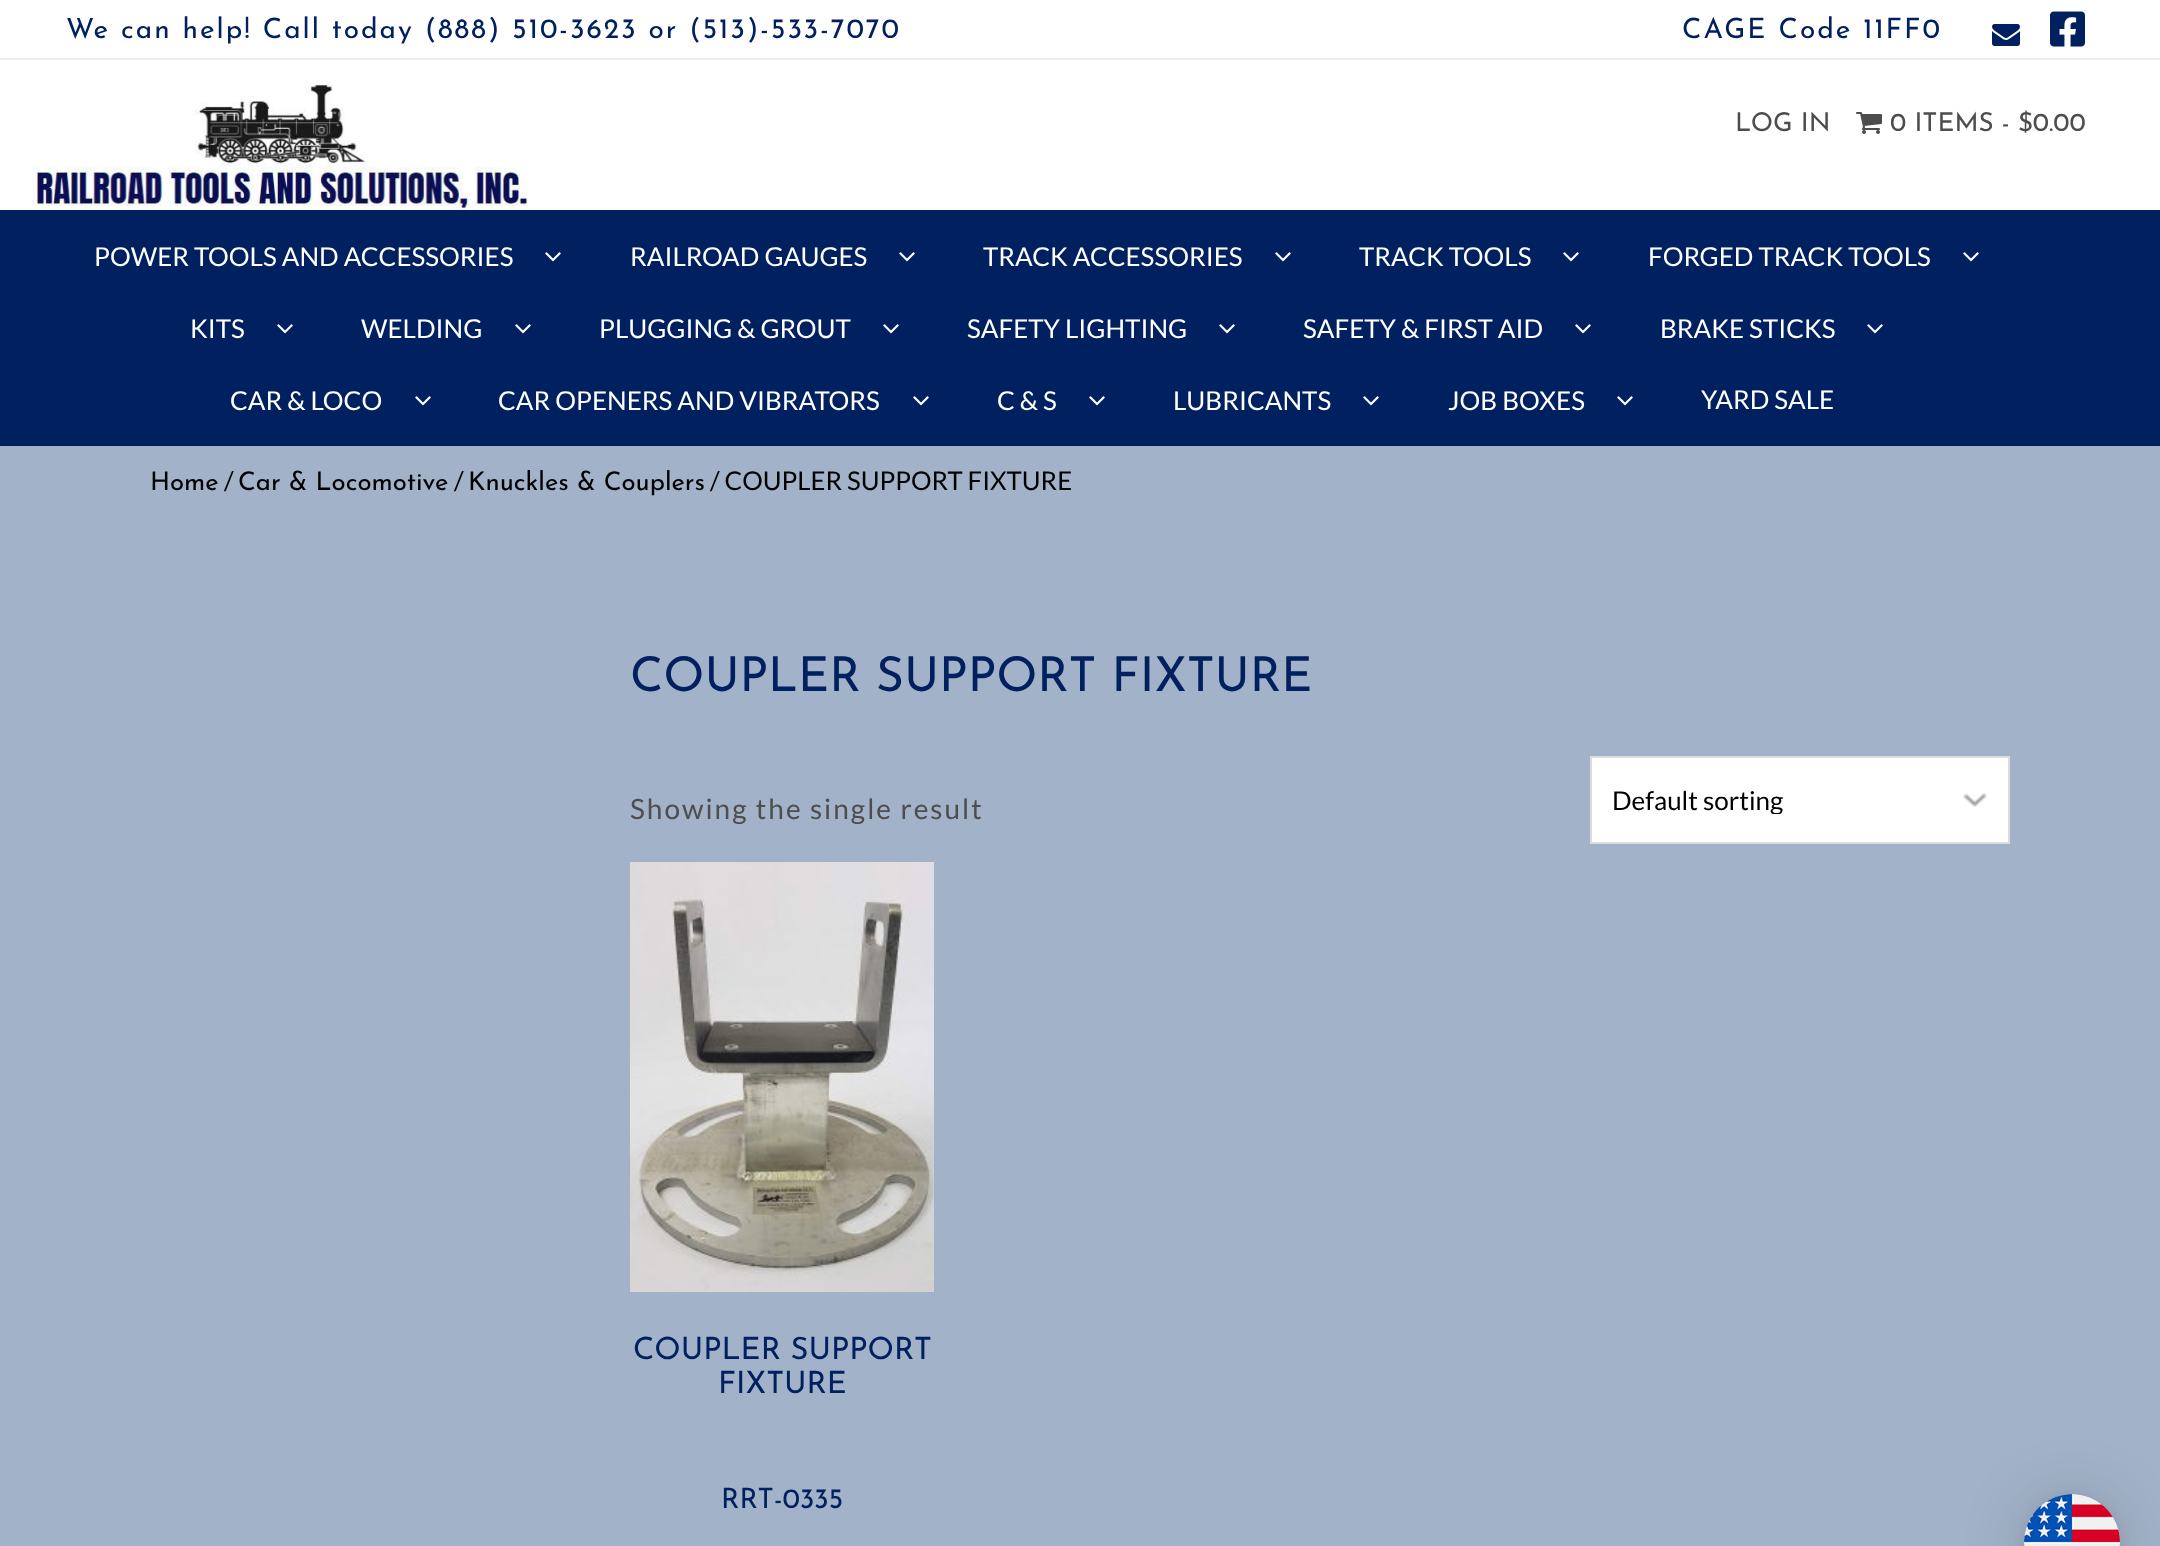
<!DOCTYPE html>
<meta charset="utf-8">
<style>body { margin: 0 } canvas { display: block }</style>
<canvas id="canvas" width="2160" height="1546"></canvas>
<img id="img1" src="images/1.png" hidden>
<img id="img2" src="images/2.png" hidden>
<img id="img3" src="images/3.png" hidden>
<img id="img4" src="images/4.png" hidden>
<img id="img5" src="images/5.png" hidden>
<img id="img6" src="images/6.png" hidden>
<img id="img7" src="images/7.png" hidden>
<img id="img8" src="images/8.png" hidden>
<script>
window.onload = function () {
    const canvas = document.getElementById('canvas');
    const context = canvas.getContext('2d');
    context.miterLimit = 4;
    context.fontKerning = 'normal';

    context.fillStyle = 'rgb(162, 178, 200)';
    context.fillRect(0, 0, 2160, 1546);
    context.fillStyle = 'rgb(255, 255, 255)';
    context.fillRect(0, 0, 2160, 58);
    context.fillStyle = 'rgb(237, 237, 237)';
    context.fillRect(0, 58, 2160, 2);
    context.drawImage(document.getElementById('img1'), 1992, 24, 28, 22);
    context.drawImage(document.getElementById('img2'), 2050, 11, 35, 36);
    context.fillStyle = 'rgb(255, 255, 255)';
    context.fillRect(0, 60, 2160, 150);
    context.drawImage(document.getElementById('img3'), 32, 82, 500, 128);
    context.drawImage(document.getElementById('img4'), 1856, 112, 26, 22);
    context.fillStyle = 'rgb(0, 32, 96)';
    context.fillRect(0, 210, 2160, 236);
    context.drawImage(document.getElementById('img5'), 545, 252, 16, 10);
    context.drawImage(document.getElementById('img5'), 899, 252, 16, 10);
    context.drawImage(document.getElementById('img5'), 1275, 252, 16, 10);
    context.drawImage(document.getElementById('img5'), 1563, 252, 16, 10);
    context.drawImage(document.getElementById('img5'), 1963, 252, 16, 10);
    context.drawImage(document.getElementById('img5'), 277, 324, 16, 10);
    context.drawImage(document.getElementById('img5'), 515, 324, 16, 10);
    context.drawImage(document.getElementById('img5'), 883, 324, 16, 10);
    context.drawImage(document.getElementById('img5'), 1219, 324, 16, 10);
    context.drawImage(document.getElementById('img5'), 1575, 324, 16, 10);
    context.drawImage(document.getElementById('img5'), 1867, 324, 16, 10);
    context.drawImage(document.getElementById('img5'), 415, 396, 16, 10);
    context.drawImage(document.getElementById('img5'), 913, 396, 16, 10);
    context.drawImage(document.getElementById('img5'), 1089, 396, 16, 10);
    context.drawImage(document.getElementById('img5'), 1363, 396, 16, 10);
    context.drawImage(document.getElementById('img5'), 1617, 396, 16, 10);
    context.fillStyle = 'rgb(255, 255, 255)';
    context.fillRect(1592, 758, 416, 84);
    context.drawImage(document.getElementById('img6'), 1963, 793, 24, 14);
    context.strokeStyle = 'rgb(220, 220, 220)';
    context.lineWidth = 2;
    context.strokeRect(1591, 757, 418, 86);
    context.drawImage(document.getElementById('img7'), 630, 862, 304, 430);
    context.fillStyle = 'rgba(0, 0, 0, 0.16)';
    context.filter = 'blur(32px)';
    context.beginPath();
    context.roundRect(2024, 1498, 96, 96, 48);
    context.fill();
    context.filter = 'none';
    context.fillStyle = 'rgba(0, 0, 0, 0.06)';
    context.filter = 'blur(6px)';
    context.beginPath();
    context.roundRect(2024, 1496, 96, 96, 48);
    context.fill();
    context.filter = 'none';
    context.drawImage(document.getElementById('img8'), 2024, 1494, 96, 52);
    context.letterSpacing = '2px';
    context.font = '28px Josefin Sans';
    context.fillStyle = 'rgb(0, 32, 96)';
    context.fillText('We can help! Call today (888) 510-3623 or (513)-533-7070', 66, 38);
    context.fillText('CAGE Code 11FF0', 1682, 38);
    context.letterSpacing = '0px';
    context.font = '26px Josefin Sans';
    context.fillStyle = 'rgb(77, 77, 77)';
    context.fillText('LOG IN', 1735, 131);
    context.fillText('0 ITEMS - $0.00', 1890, 131);
    context.font = '26px Lato';
    context.fillStyle = 'rgb(255, 255, 255)';
    context.fillText('POWER TOOLS AND ACCESSORIES', 94, 266);
    context.fillText('RAILROAD GAUGES', 630, 266);
    context.fillText('TRACK ACCESSORIES', 983, 266);
    context.fillText('TRACK TOOLS', 1359, 266);
    context.fillText('FORGED TRACK TOOLS', 1648, 266);
    context.fillText('KITS', 190, 338);
    context.fillText('WELDING', 361, 338);
    context.fillText('PLUGGING & GROUT', 599, 338);
    context.fillText('SAFETY LIGHTING', 967, 338);
    context.fillText('SAFETY & FIRST AID', 1303, 338);
    context.fillText('BRAKE STICKS', 1660, 338);
    context.fillText('CAR & LOCO', 230, 410);
    context.fillText('CAR OPENERS AND VIBRATORS', 498, 410);
    context.fillText('C & S', 997, 410);
    context.fillText('LUBRICANTS', 1173, 410);
    context.fillText('JOB BOXES', 1448, 410);
    context.fillText('YARD SALE', 1701, 409);
    context.font = '25.75px Josefin Sans';
    context.fillStyle = 'rgb(0, 0, 0)';
    context.fillText('Home', 150, 490);
    context.font = '25.75px Lato';
    context.fillText('/', 224, 490);
    context.font = '25.75px Josefin Sans';
    context.fillText('Car & Locomotive', 238, 490);
    context.font = '25.75px Lato';
    context.fillText('/', 454, 490);
    context.font = '25.75px Josefin Sans';
    context.fillText('Knuckles & Couplers', 468, 490);
    context.font = '25.75px Lato';
    context.fillText('/ COUPLER SUPPORT FIXTURE', 710, 490);
    context.font = '48px Josefin Sans';
    context.fillStyle = 'rgb(0, 32, 96)';
    context.fillText('COUPLER SUPPORT FIXTURE', 630, 691);
    context.letterSpacing = '2px';
    context.font = '28px Lato';
    context.fillStyle = 'rgb(77, 77, 77)';
    context.fillText('Showing the single result', 630, 819);
    context.save();
    context.beginPath();
    context.rect(1612, 788, 396, 26);
    context.clip();
    context.letterSpacing = '0px';
    context.font = '26px Lato';
    context.fillStyle = 'rgb(0, 0, 0)';
    context.fillText('Default sorting', 1612, 810);
    context.restore();
    context.letterSpacing = '0px';
    context.font = '30.75px Josefin Sans';
    context.fillStyle = 'rgb(0, 32, 96)';
    context.fillText('COUPLER SUPPORT', 633, 1359);
    context.fillText('FIXTURE', 718, 1393);
    context.font = '28px Josefin Sans';
    context.fillText('RRT-0335', 721, 1508);
};
</script>
